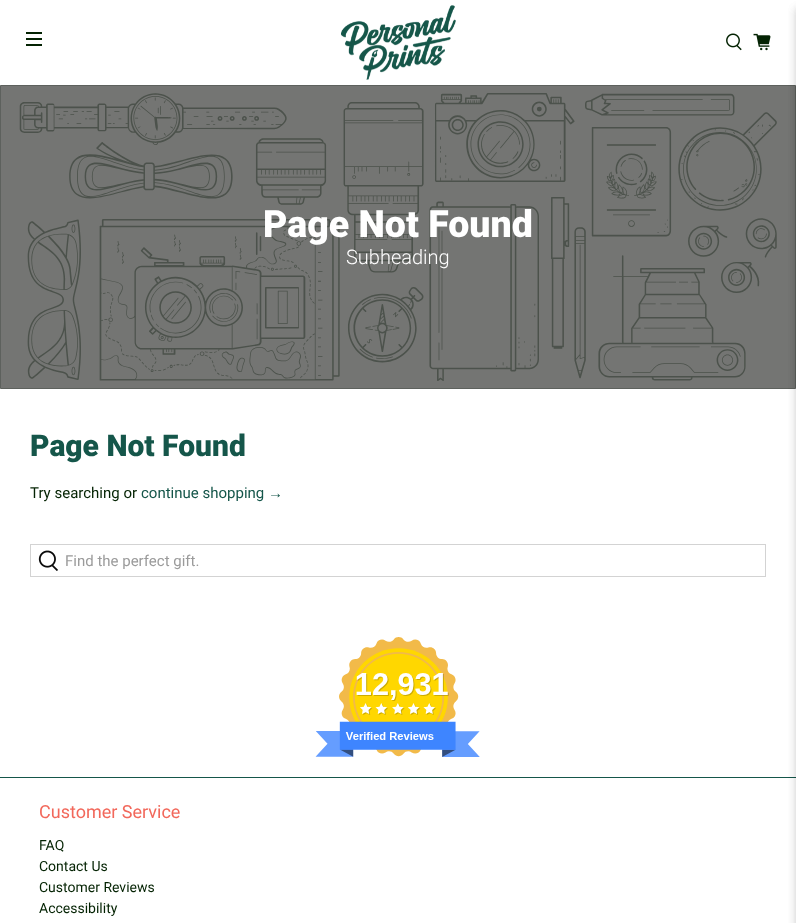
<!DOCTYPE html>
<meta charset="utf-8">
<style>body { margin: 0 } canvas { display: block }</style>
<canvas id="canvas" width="796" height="923"></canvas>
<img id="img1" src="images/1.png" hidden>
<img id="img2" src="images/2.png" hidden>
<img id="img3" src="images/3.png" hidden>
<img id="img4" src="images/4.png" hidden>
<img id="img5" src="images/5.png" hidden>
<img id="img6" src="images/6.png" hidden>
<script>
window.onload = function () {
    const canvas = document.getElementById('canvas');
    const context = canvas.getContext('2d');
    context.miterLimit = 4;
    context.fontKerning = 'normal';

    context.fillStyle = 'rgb(255, 255, 255)';
    context.fillRect(0, 0, 796, 923);
    context.fillStyle = 'rgb(4, 35, 3)';
    context.fillRect(26, 32, 16, 2);
    context.fillRect(26, 38, 16, 2);
    context.fillRect(26, 44, 16, 2);
    context.drawImage(document.getElementById('img1'), 341, 5, 115, 75);
    context.drawImage(document.getElementById('img2'), 726, 33, 16, 18);
    context.drawImage(document.getElementById('img3'), 753, 33, 18, 18);
    context.fillStyle = 'rgb(116, 117, 115)';
    context.beginPath();
    context.rect(0.5, 85.5, 795, 303);
    context.fill();
    context.strokeStyle = 'rgb(93, 97, 93)';
    context.stroke();
    context.fillStyle = 'rgb(21, 86, 74)';
    context.fillRect(0, 777, 796, 1);
    context.fillStyle = 'rgba(10, 10, 10, 0.1)';
    context.filter = 'blur(4px)';
    context.beginPath();
    context.rect(796, 8, 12, 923);
    context.fill();
    context.filter = 'none';
    context.drawImage(document.getElementById('img4'), 19, 93, 758, 288);
    context.strokeStyle = 'rgb(211, 211, 211)';
    context.strokeRect(30.5, 544.5, 735, 32);
    context.drawImage(document.getElementById('img5'), 38, 550, 20, 21);
    context.filter = 'blur(4px)';
    context.beginPath();
    context.rect(796, 8, 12, 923);
    context.fill();
    context.filter = 'none';
    context.drawImage(document.getElementById('img6'), 315, 637, 165, 120);
    context.font = '900 37.5px Roboto';
    context.fillStyle = 'rgb(255, 255, 255)';
    context.fillText('Page Not Found', 263, 237);
    context.font = '300 20px Roboto';
    context.fillText('Subheading', 346, 264);
    context.font = '900 30px Roboto';
    context.fillStyle = 'rgb(21, 86, 74)';
    context.fillText('Page Not Found', 30, 456);
    context.font = '15px Roboto';
    context.fillStyle = 'rgb(4, 35, 3)';
    context.fillText('Try searching or', 30, 498);
    context.fillStyle = 'rgb(21, 86, 74)';
    context.fillText('continue shopping', 141, 498);
    context.font = '15px Liberation Sans';
    context.fillText('→', 268, 498);
    context.font = '15px Roboto';
    context.fillStyle = 'rgb(155, 155, 155)';
    context.fillText('Find the perfect gift.', 65, 566);
    context.font = '18px Roboto';
    context.fillStyle = 'rgb(242, 104, 91)';
    context.fillText('Customer Service', 39, 818);
    context.font = '14px Roboto';
    context.fillStyle = 'rgb(4, 35, 3)';
    context.fillText('FAQ', 39, 850);
    context.fillText('Contact Us', 39, 871);
    context.fillText('Customer Reviews', 39, 892);
    context.fillText('Accessibility', 39, 913);
};
</script>
